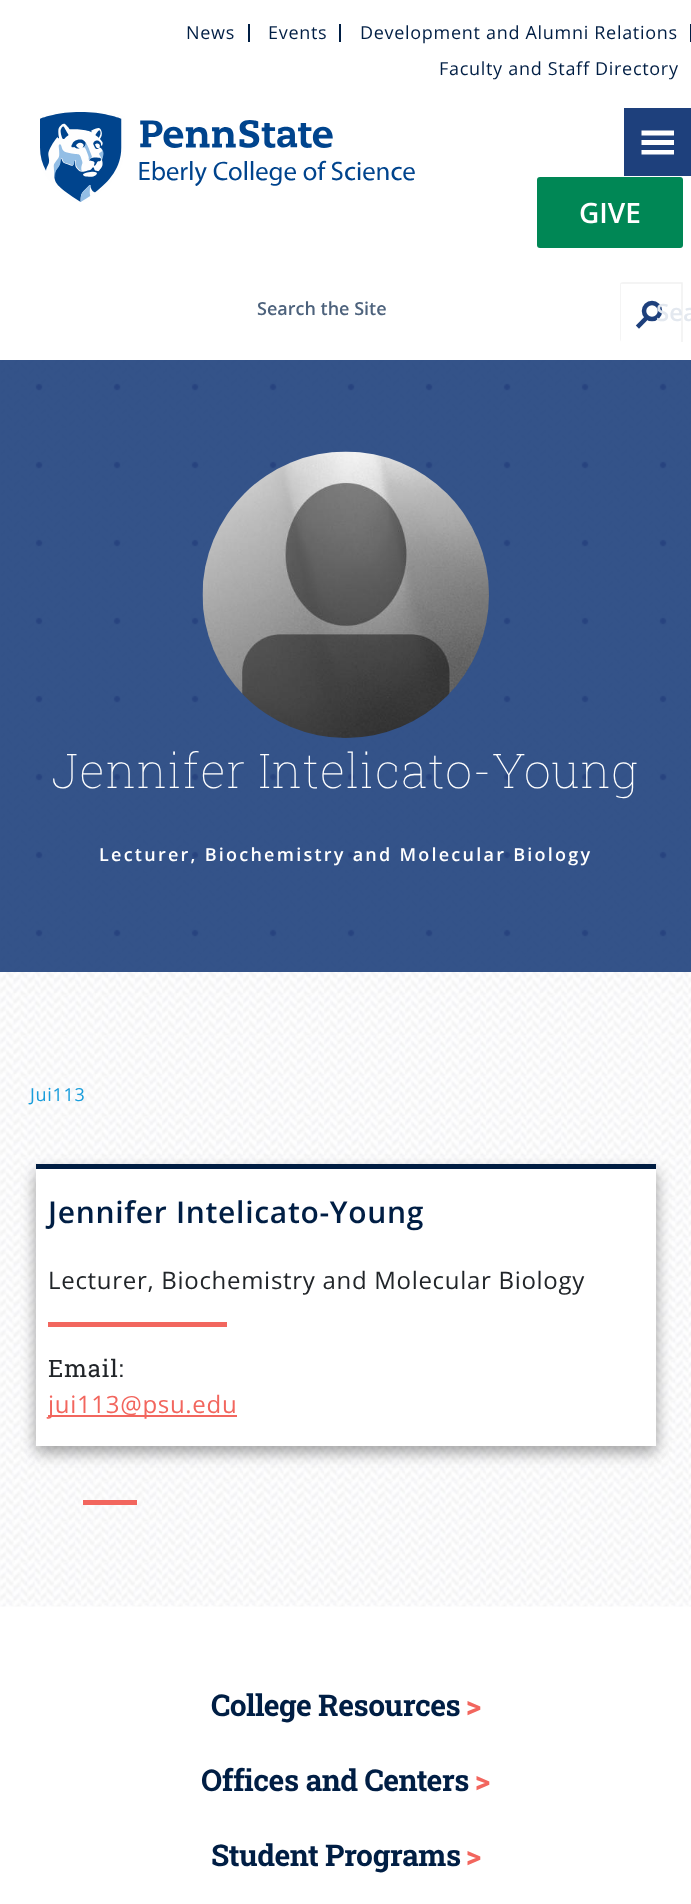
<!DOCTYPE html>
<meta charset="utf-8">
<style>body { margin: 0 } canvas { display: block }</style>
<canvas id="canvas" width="691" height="1904"></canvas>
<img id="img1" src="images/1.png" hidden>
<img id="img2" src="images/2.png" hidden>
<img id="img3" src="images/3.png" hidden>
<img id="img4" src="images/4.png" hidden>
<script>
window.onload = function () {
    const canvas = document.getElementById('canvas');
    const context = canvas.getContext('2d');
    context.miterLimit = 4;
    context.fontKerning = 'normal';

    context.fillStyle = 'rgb(255, 255, 255)';
    context.fillRect(0, 0, 691, 1904);
    context.fillStyle = 'rgb(0, 30, 68)';
    context.fillRect(248, 24, 2, 18);
    context.fillRect(339, 24, 2, 18);
    context.fillRect(690, 24, 1, 18);
    context.drawImage(document.getElementById('img1'), 40, 112, 375, 90);
    context.fillStyle = 'rgb(30, 64, 124)';
    context.fillRect(624, 108, 67, 68);
    context.fillStyle = 'rgb(255, 255, 255)';
    context.beginPath();
    context.moveTo(641.5, 135.5);
    context.lineTo(641.5, 130.5);
    context.lineTo(674, 130.5);
    context.lineTo(674, 135.5);
    context.closePath();
    context.moveTo(641.5, 145);
    context.lineTo(641.5, 140);
    context.lineTo(674, 140);
    context.lineTo(674, 145);
    context.closePath();
    context.moveTo(641.5, 154.5);
    context.lineTo(641.5, 150);
    context.lineTo(674, 150);
    context.lineTo(674, 154.5);
    context.closePath();
    context.fill();
    context.fillStyle = 'rgb(0, 135, 85)';
    context.beginPath();
    context.roundRect(537, 177, 146, 71, 3);
    context.fill();
    context.save();
    context.beginPath();
    context.roundRect(620, 282, 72, 60, 3);
    context.clip();
    context.beginPath();
    context.moveTo(620, 283);
    context.lineTo(682, 283);
    context.lineTo(682, 344);
    context.lineTo(620, 344);
    context.closePath();
    context.strokeStyle = 'rgb(241, 241, 241)';
    context.lineWidth = 1.5;
    context.stroke();
    context.restore();
    context.beginPath();
    context.arc(652, 311, 8, 0, 2 * Math.PI);
    context.strokeStyle = 'rgb(30, 64, 124)';
    context.lineWidth = 4.5;
    context.stroke();
    context.beginPath();
    context.moveTo(645, 319.5);
    context.lineTo(639, 325.5);
    context.lineCap = 'square';
    context.stroke();
    context.drawImage(document.getElementById('img2'), 0, 360, 691, 1247);
    context.drawImage(document.getElementById('img3'), 35, 383, 632, 554);
    context.fillStyle = 'rgba(30, 64, 124, 0.9)';
    context.fillRect(0, 360, 691, 612);
    context.drawImage(document.getElementById('img4'), 202, 451, 287, 287);
    context.fillStyle = 'rgba(0, 0, 0, 0.2)';
    context.filter = 'blur(7.5px)';
    context.beginPath();
    context.rect(36, 1170, 620, 282);
    context.fill();
    context.filter = 'none';
    context.fillStyle = 'rgb(0, 30, 68)';
    context.fillRect(36, 1164, 620, 5);
    context.fillStyle = 'rgba(0, 0, 0, 0.2)';
    context.filter = 'blur(7.5px)';
    context.beginPath();
    context.rect(36, 1175, 620, 277);
    context.fill();
    context.filter = 'none';
    context.fillStyle = 'rgb(255, 255, 255)';
    context.fillRect(36, 1169, 620, 277);
    context.fillStyle = 'rgb(242, 102, 94)';
    context.fillRect(48, 1322, 179, 5);
    context.fillRect(48, 1415, 189, 2);
    context.fillRect(83, 1500, 54, 5);
    context.letterSpacing = '0.7px';
    context.font = '18px Open Sans';
    context.fillStyle = 'rgb(0, 30, 68)';
    context.fillText('News', 186, 39);
    context.fillText('Events', 268, 39);
    context.fillText('Development and Alumni Relations', 360, 39);
    context.fillText('Faculty and Staff Directory', 439, 75);
    context.letterSpacing = '0px';
    context.font = '600 28px Open Sans';
    context.fillStyle = 'rgb(255, 255, 255)';
    context.fillText('GIVE', 579, 223);
    context.font = '600 18px Open Sans';
    context.fillStyle = 'rgb(77, 98, 124)';
    context.fillText('Search the Site', 257, 315);
    context.font = '600 24px Open Sans';
    context.fillStyle = 'rgb(227, 232, 239)';
    context.fillText('Sea', 656, 321);
    context.letterSpacing = '0.7px';
    context.font = '100 48px Roboto Slab';
    context.fillStyle = 'rgb(255, 255, 255)';
    context.fillText('Jennifer Intelicato-Young', 52, 788);
    context.letterSpacing = '2.25px';
    context.font = '600 18px Open Sans';
    context.fillText('Lecturer, Biochemistry and Molecular Biology', 99, 861);
    context.letterSpacing = '0.7px';
    context.font = '18px Open Sans';
    context.fillStyle = 'rgb(25, 157, 219)';
    context.fillText('Jui113', 30, 1101);
    context.font = '600 30px Open Sans';
    context.fillStyle = 'rgb(0, 30, 68)';
    context.fillText('Jennifer Intelicato-Young', 48, 1223);
    context.font = '24px Open Sans';
    context.fillStyle = 'rgb(33, 37, 41)';
    context.fillText('Lecturer, Biochemistry and Molecular Biology', 48, 1289);
    context.font = '24px Roboto Slab';
    context.fillText('Email:', 48, 1377);
    context.font = '24px Open Sans';
    context.fillStyle = 'rgb(242, 102, 94)';
    context.fillText('jui113@psu.edu', 48, 1413);
    context.letterSpacing = '-0.5px';
    context.font = 'bold 30px Roboto Slab';
    context.fillStyle = 'rgb(0, 30, 68)';
    context.fillText('College Resources', 211, 1716);
    context.fillStyle = 'rgb(242, 102, 94)';
    context.fillText('>', 466, 1716);
    context.fillStyle = 'rgb(0, 30, 68)';
    context.fillText('Offices and Centers', 201, 1791);
    context.fillStyle = 'rgb(242, 102, 94)';
    context.fillText('>', 475, 1791);
    context.fillStyle = 'rgb(0, 30, 68)';
    context.fillText('Student Programs', 211, 1866);
    context.fillStyle = 'rgb(242, 102, 94)';
    context.fillText('>', 466, 1866);
};
</script>
